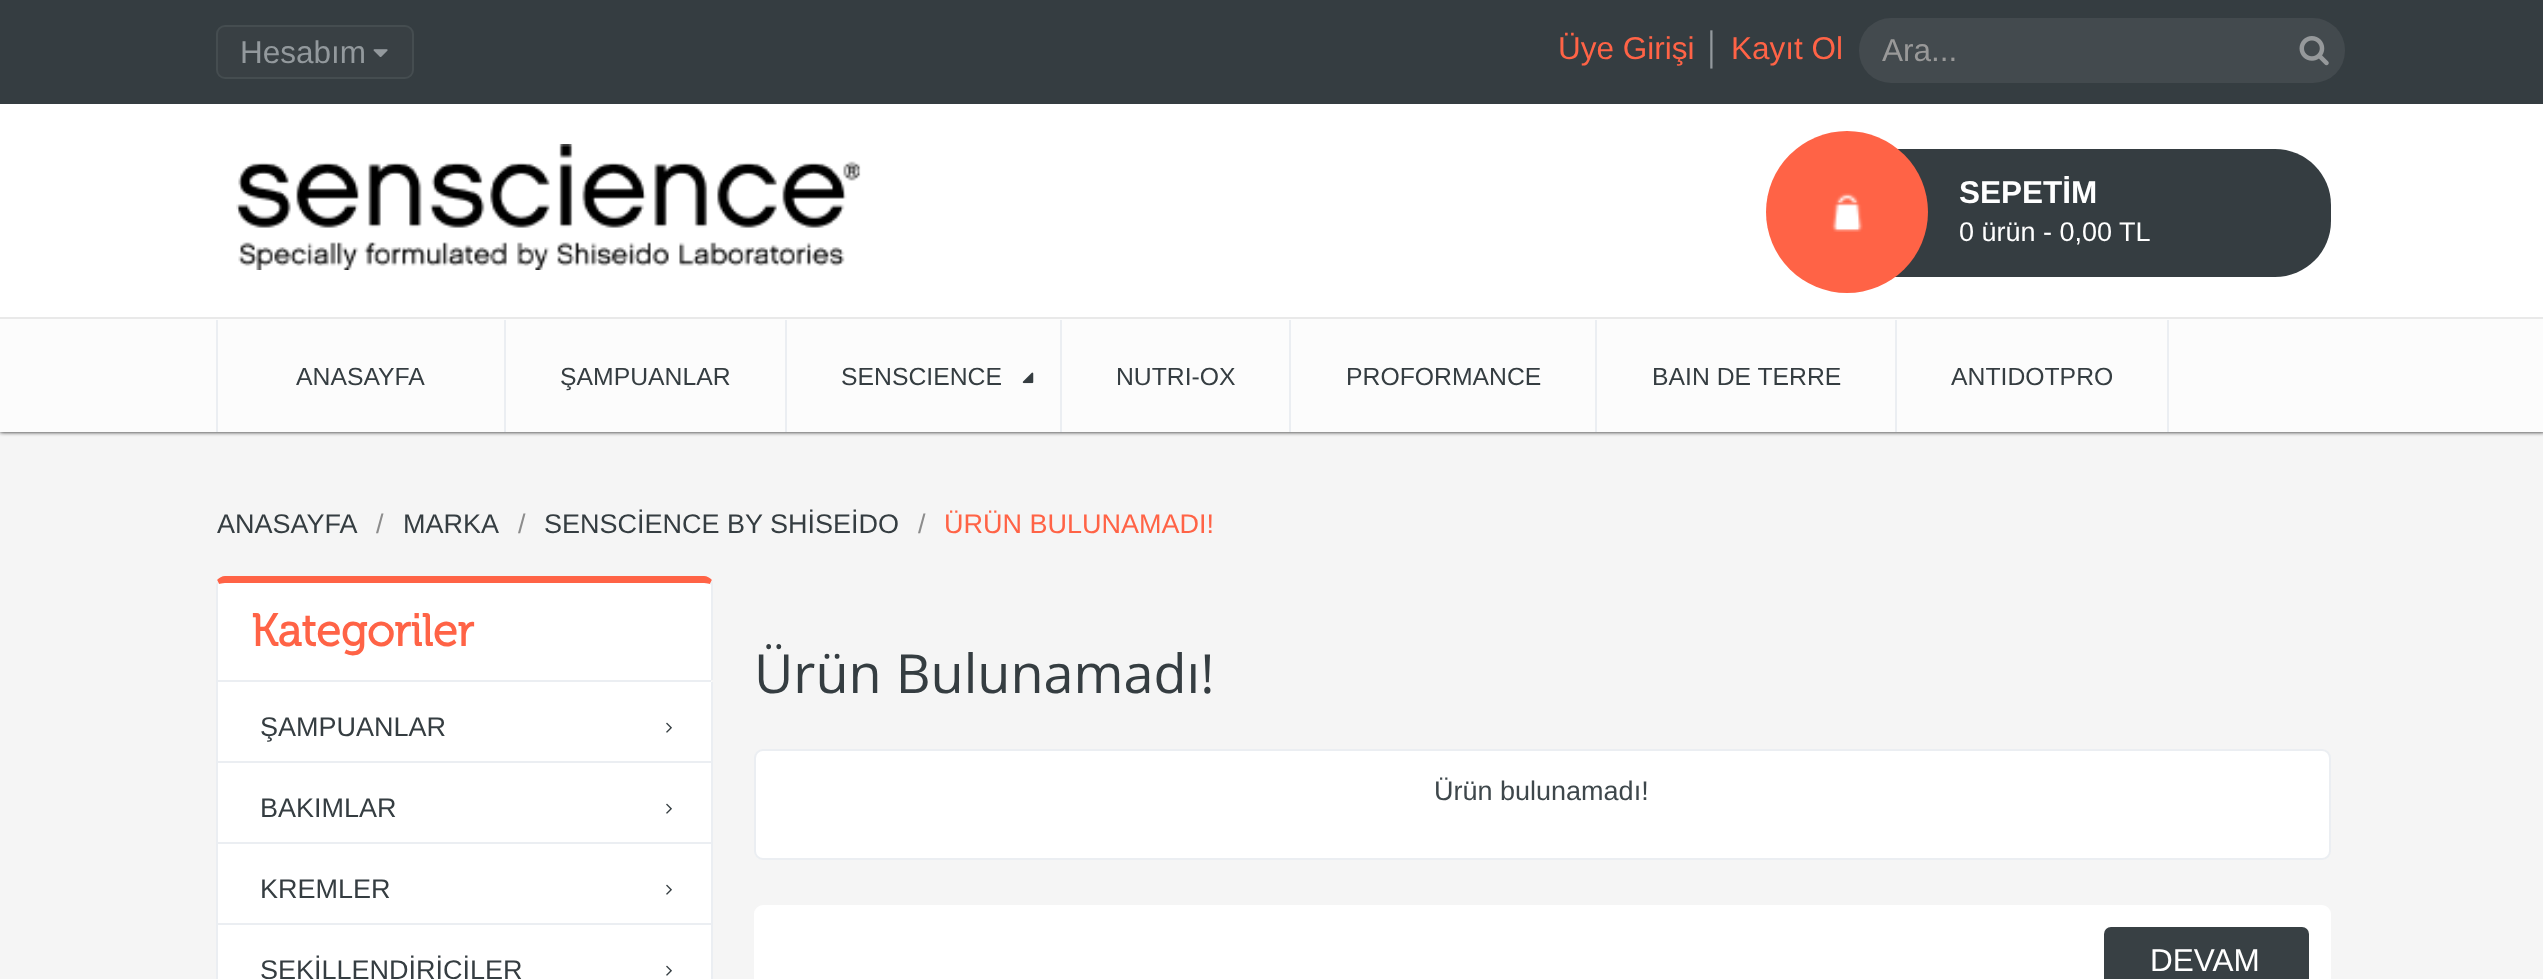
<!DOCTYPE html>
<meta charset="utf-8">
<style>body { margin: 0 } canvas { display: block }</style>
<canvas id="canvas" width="2543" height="979"></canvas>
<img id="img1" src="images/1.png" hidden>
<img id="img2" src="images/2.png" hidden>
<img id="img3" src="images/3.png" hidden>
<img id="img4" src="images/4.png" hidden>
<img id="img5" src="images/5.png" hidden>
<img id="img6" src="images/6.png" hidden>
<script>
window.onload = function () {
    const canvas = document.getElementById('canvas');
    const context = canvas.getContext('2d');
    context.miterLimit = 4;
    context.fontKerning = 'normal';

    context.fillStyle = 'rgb(245, 245, 245)';
    context.fillRect(0, 0, 2543, 979);
    context.fillStyle = 'rgb(18, 18, 18)';
    context.filter = 'blur(2px)';
    context.beginPath();
    context.rect(0, 0, 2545, 432);
    context.fill();
    context.filter = 'none';
    context.fillStyle = 'rgb(53, 61, 65)';
    context.fillRect(0, 0, 2543, 104);
    context.fillStyle = 'rgb(57, 64, 68)';
    context.beginPath();
    context.roundRect(217, 26, 196, 52, 8);
    context.fill();
    context.strokeStyle = 'rgb(69, 77, 80)';
    context.lineWidth = 2;
    context.stroke();
    context.drawImage(document.getElementById('img1'), 373, 49, 15, 8);
    context.fillStyle = 'rgb(255, 255, 255)';
    context.fillRect(0, 104, 2543, 213);
    context.fillStyle = 'rgb(67, 74, 78)';
    context.beginPath();
    context.roundRect(1859, 18, 486, 65, 32);
    context.fill();
    context.drawImage(document.getElementById('img2'), 2299, 36, 30, 30);
    context.drawImage(document.getElementById('img3'), 236, 144, 625, 126);
    context.fillStyle = 'rgb(53, 61, 65)';
    context.beginPath();
    context.roundRect(1769, 149, 562, 128, 56);
    context.fill();
    context.fillStyle = 'rgb(255, 99, 70)';
    context.beginPath();
    context.arc(1847, 212, 81, 0, 2 * Math.PI);
    context.fill();
    context.drawImage(document.getElementById('img4'), 1831, 193, 32, 39);
    context.fillStyle = 'rgb(252, 252, 252)';
    context.fillRect(0, 319, 2543, 113);
    context.fillStyle = 'rgb(233, 233, 233)';
    context.fillRect(0, 317, 2543, 2);
    context.fillStyle = 'rgb(235, 238, 242)';
    context.fillRect(504, 320, 2, 112);
    context.fillRect(216, 320, 2, 112);
    context.fillRect(785, 320, 2, 112);
    context.fillRect(1060, 320, 2, 112);
    context.drawImage(document.getElementById('img5'), 1022, 372, 12, 12);
    context.fillRect(1289, 320, 2, 112);
    context.fillRect(1595, 320, 2, 112);
    context.fillRect(1895, 320, 2, 112);
    context.fillRect(2167, 320, 2, 112);
    context.fillStyle = 'rgb(255, 255, 255)';
    context.beginPath();
    context.roundRect(216, 576, 497, 104, [9, 9, 0, 0]);
    context.fill();
    context.fillStyle = 'rgb(255, 99, 70)';
    context.beginPath();
    context.moveTo(225, 576);
    context.bezierCurveTo(222, 576, 219, 578, 217, 580);
    context.lineTo(219, 584);
    context.bezierCurveTo(220, 584, 222, 583, 225, 583);
    context.lineTo(704, 583);
    context.bezierCurveTo(707, 583, 709, 584, 710, 584);
    context.lineTo(712, 580);
    context.bezierCurveTo(710, 578, 707, 576, 704, 576);
    context.closePath();
    context.fill();
    context.fillStyle = 'rgb(235, 238, 242)';
    context.beginPath();
    context.moveTo(711, 680);
    context.lineTo(711, 585);
    context.lineTo(710, 584);
    context.lineTo(712, 580);
    context.bezierCurveTo(713, 582, 713, 583, 713, 585);
    context.lineTo(713, 680);
    context.closePath();
    context.fill();
    context.beginPath();
    context.moveTo(216, 680);
    context.lineTo(218, 680);
    context.lineTo(218, 584);
    context.lineTo(219, 584);
    context.lineTo(217, 580);
    context.bezierCurveTo(217, 582, 216, 583, 216, 585);
    context.closePath();
    context.fill();
    context.fillStyle = 'rgb(255, 255, 255)';
    context.beginPath();
    context.moveTo(216, 680);
    context.lineTo(708, 680);
    context.bezierCurveTo(711, 680, 713, 682, 713, 685);
    context.lineTo(713, 979);
    context.bezierCurveTo(713, 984, 709, 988, 704, 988);
    context.lineTo(221, 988);
    context.bezierCurveTo(218, 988, 216, 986, 216, 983);
    context.closePath();
    context.fill();
    context.fillStyle = 'rgb(235, 238, 242)';
    context.fillRect(216, 680, 495, 2);
    context.fillRect(711, 682, 2, 297);
    context.fillRect(216, 680, 2, 299);
    context.fillRect(218, 761, 493, 2);
    context.drawImage(document.getElementById('img6'), 666, 722, 6, 11);
    context.fillRect(218, 842, 493, 2);
    context.drawImage(document.getElementById('img6'), 666, 803, 6, 11);
    context.fillRect(218, 923, 493, 2);
    context.drawImage(document.getElementById('img6'), 666, 884, 6, 11);
    context.drawImage(document.getElementById('img6'), 666, 965, 6, 11);
    context.fillStyle = 'rgb(255, 255, 255)';
    context.beginPath();
    context.roundRect(755, 750, 1575, 109, 8);
    context.fill();
    context.strokeStyle = 'rgb(235, 238, 242)';
    context.stroke();
    context.beginPath();
    context.roundRect(754, 905, 1577, 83, 9);
    context.fill();
    context.fillStyle = 'rgb(56, 64, 68)';
    context.beginPath();
    context.roundRect(2104, 927, 205, 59, 7);
    context.fill();
    context.font = '31.5px Liberation Sans';
    context.fillStyle = 'rgb(147, 153, 157)';
    context.fillText('Hesabım', 240, 63);
    context.fillStyle = 'rgb(255, 99, 70)';
    context.fillText('Üye Girişi', 1558, 59);
    context.fillStyle = 'rgb(147, 153, 157)';
    context.fillText('│', 1703, 59);
    context.fillStyle = 'rgb(255, 99, 70)';
    context.fillText('Kayıt Ol', 1731, 59);
    context.fillStyle = 'rgb(153, 153, 153)';
    context.fillText('Ara...', 1882, 61);
    context.font = 'bold 31.5px Liberation Sans';
    context.fillStyle = 'rgb(255, 255, 255)';
    context.fillText('SEPETİM', 1959, 203);
    context.font = '27px Liberation Sans';
    context.fillText('0 ürün - 0,00 TL', 1959, 241);
    context.font = '24.75px Liberation Sans';
    context.fillStyle = 'rgb(53, 61, 65)';
    context.fillText('ANASAYFA', 296, 385);
    context.fillText('ŞAMPUANLAR', 560, 385);
    context.fillText('SENSCIENCE', 841, 385);
    context.fillText('NUTRI-OX', 1116, 385);
    context.fillText('PROFORMANCE', 1346, 385);
    context.fillText('BAIN DE TERRE', 1652, 385);
    context.fillText('ANTIDOTPRO', 1951, 385);
    context.font = '27px Liberation Sans';
    context.fillText('ANASAYFA', 217, 533);
    context.fillStyle = 'rgb(140, 140, 140)';
    context.fillText('/', 376, 533);
    context.fillStyle = 'rgb(53, 61, 65)';
    context.fillText('MARKA', 403, 533);
    context.fillStyle = 'rgb(140, 140, 140)';
    context.fillText('/', 518, 533);
    context.fillStyle = 'rgb(53, 61, 65)';
    context.fillText('SENSCİENCE BY SHİSEİDO', 544, 533);
    context.fillStyle = 'rgb(140, 140, 140)';
    context.fillText('/', 918, 533);
    context.fillStyle = 'rgb(255, 99, 70)';
    context.fillText('ÜRÜN BULUNAMADI!', 944, 533);
    context.font = 'bold 45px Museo';
    context.fillText('Kategoriler', 251, 646);
    context.font = '27px Liberation Sans';
    context.fillStyle = 'rgb(53, 61, 65)';
    context.fillText('ŞAMPUANLAR', 260, 736);
    context.fillText('BAKIMLAR', 260, 817);
    context.fillText('KREMLER', 260, 898);
    context.fillText('ŞEKİLLENDİRİCİLER', 260, 979);
    context.font = '54px Open Sans';
    context.fillText('Ürün Bulunamadı!', 754, 693);
    context.font = '27px Liberation Sans';
    context.fillStyle = 'rgb(62, 71, 75)';
    context.fillText('Ürün bulunamadı!', 1434, 800);
    context.font = '31.5px Liberation Sans';
    context.fillStyle = 'rgb(255, 255, 255)';
    context.fillText('DEVAM', 2150, 971);
};
</script>
